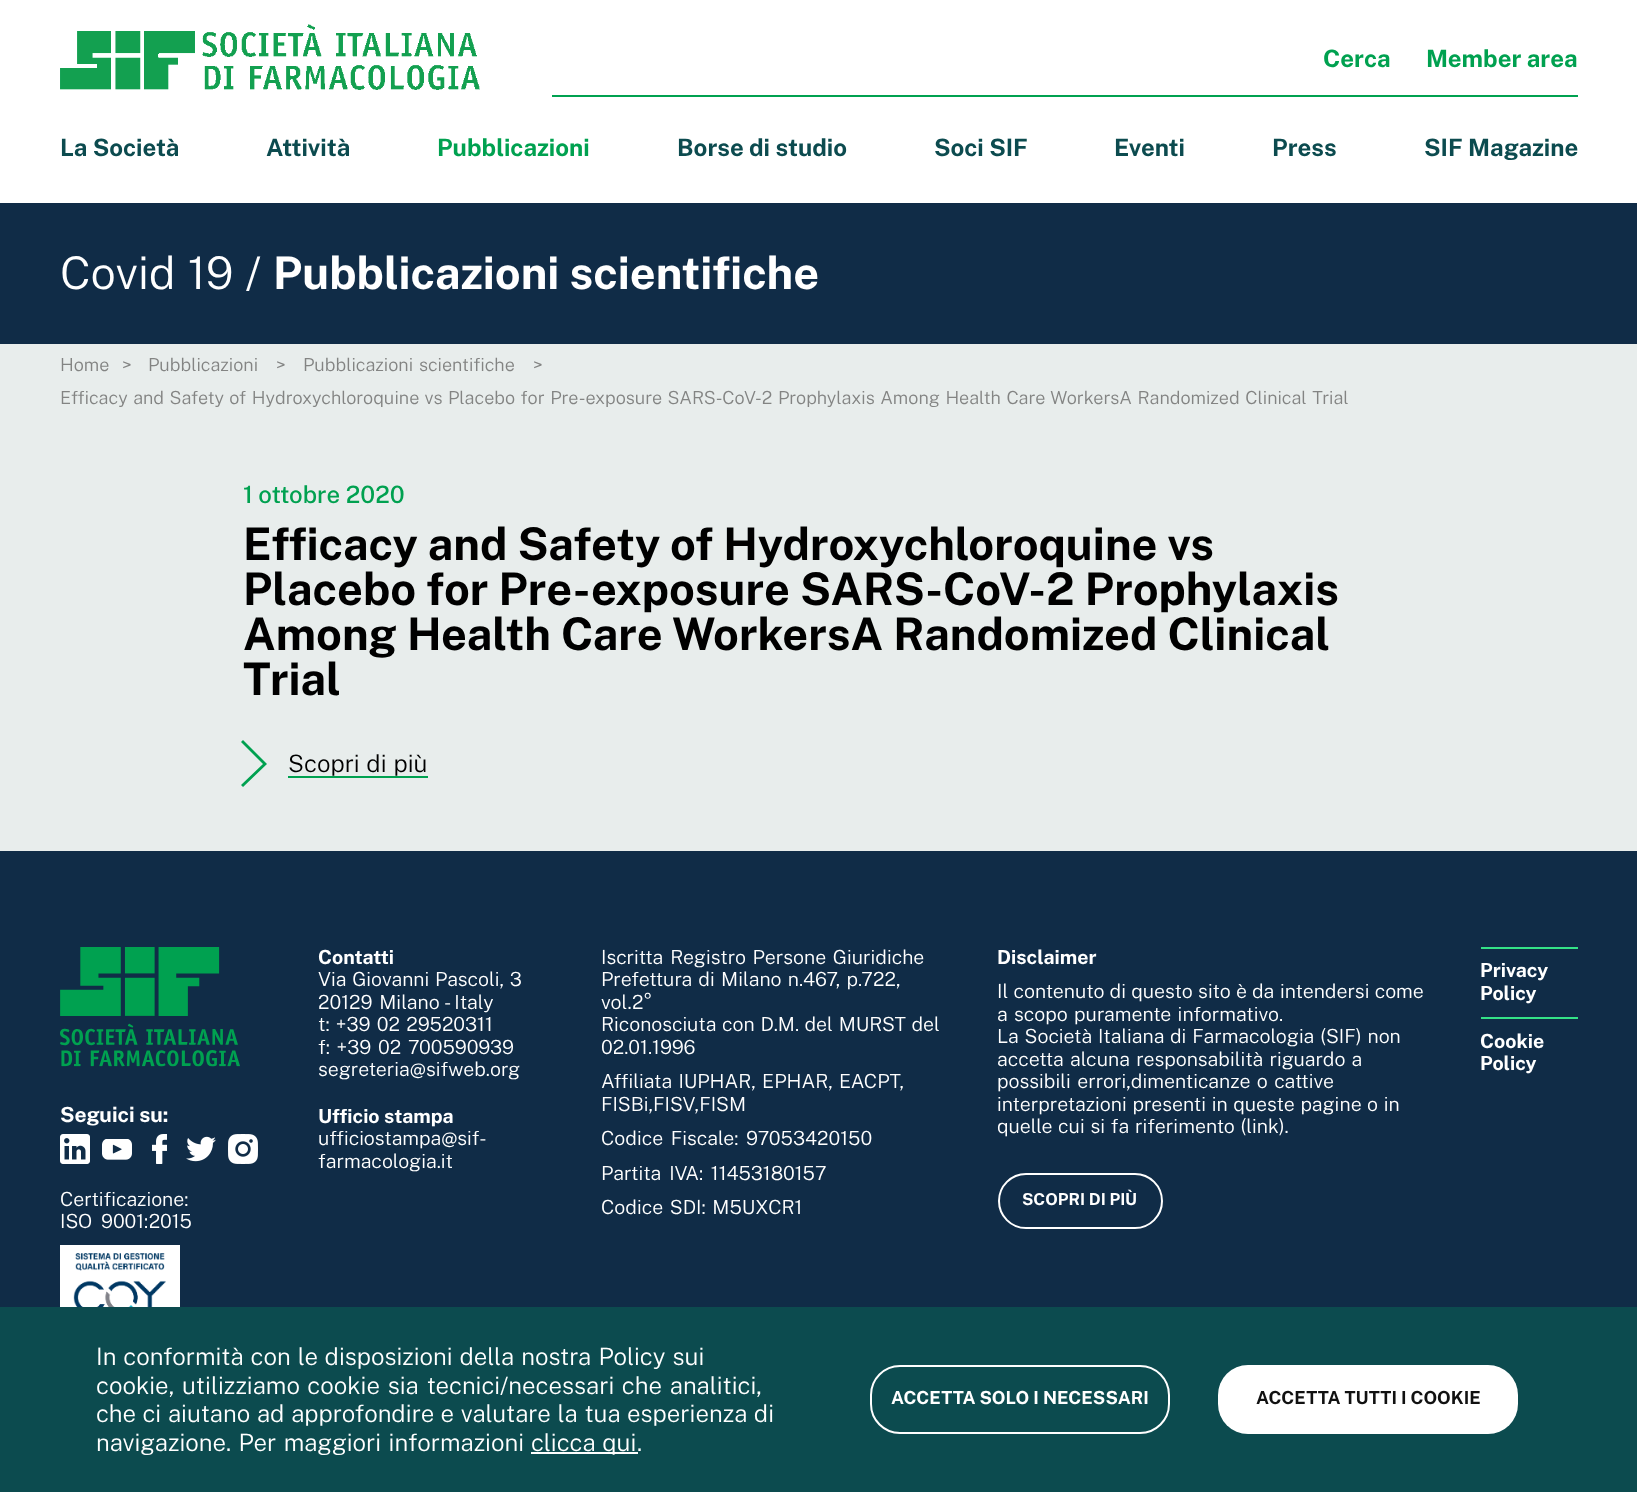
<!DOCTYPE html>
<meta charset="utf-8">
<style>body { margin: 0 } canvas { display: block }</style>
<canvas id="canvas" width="1637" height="1492"></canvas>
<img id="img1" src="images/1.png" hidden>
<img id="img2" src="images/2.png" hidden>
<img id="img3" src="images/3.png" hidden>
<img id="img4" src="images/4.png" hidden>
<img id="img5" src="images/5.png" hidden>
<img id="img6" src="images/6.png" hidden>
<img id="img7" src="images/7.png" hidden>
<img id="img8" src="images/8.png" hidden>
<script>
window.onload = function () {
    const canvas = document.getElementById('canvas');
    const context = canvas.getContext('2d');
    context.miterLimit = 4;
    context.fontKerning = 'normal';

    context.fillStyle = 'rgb(232, 237, 236)';
    context.fillRect(0, 0, 1637, 1492);
    context.fillStyle = 'rgb(255, 255, 255)';
    context.fillRect(0, 0, 1637, 203);
    context.drawImage(document.getElementById('img1'), 60, 24, 420, 66);
    context.fillStyle = 'rgb(0, 161, 80)';
    context.fillRect(552, 95, 1026, 2);
    context.fillStyle = 'rgb(16, 44, 71)';
    context.fillRect(0, 203, 1637, 141);
    context.fillStyle = 'rgb(0, 161, 80)';
    context.beginPath();
    context.moveTo(243, 740);
    context.lineTo(267, 764);
    context.lineTo(243, 787);
    context.lineTo(241, 785);
    context.lineTo(263, 764);
    context.lineTo(241, 742);
    context.closePath();
    context.fill();
    context.fillRect(288, 776, 140, 2);
    context.fillStyle = 'rgb(16, 44, 71)';
    context.fillRect(0, 851, 1637, 456);
    context.beginPath();
    context.roundRect(999, 1174, 163, 54, 27);
    context.strokeStyle = 'rgb(255, 255, 255)';
    context.lineWidth = 2;
    context.stroke();
    context.fillStyle = 'rgb(52, 226, 135)';
    context.fillRect(1481, 947, 97, 2);
    context.fillRect(1481, 1017, 97, 2);
    context.drawImage(document.getElementById('img2'), 60, 947, 180, 120);
    context.drawImage(document.getElementById('img3'), 60, 1134, 30, 30);
    context.drawImage(document.getElementById('img4'), 102, 1139, 30, 21);
    context.drawImage(document.getElementById('img5'), 152, 1134, 15, 30);
    context.drawImage(document.getElementById('img6'), 186, 1136, 30, 26);
    context.drawImage(document.getElementById('img7'), 228, 1134, 30, 30);
    context.fillStyle = 'rgb(255, 255, 255)';
    context.fillRect(60, 1245, 120, 62);
    context.drawImage(document.getElementById('img8'), 73, 1253, 93, 54);
    context.fillStyle = 'rgb(12, 75, 79)';
    context.fillRect(0, 1307, 1637, 185);
    context.fillStyle = 'rgb(255, 255, 255)';
    context.fillRect(531, 1452, 107, 2);
    context.beginPath();
    context.roundRect(871, 1366, 298, 67, 29);
    context.stroke();
    context.beginPath();
    context.roundRect(1218, 1365, 300, 69, 30);
    context.fill();
    context.font = 'bold 24px Public Sans';
    context.fillStyle = 'rgb(0, 161, 80)';
    context.fillText('Cerca', 1323, 67);
    context.fillText('Member area', 1426, 67);
    context.fillStyle = 'rgb(12, 75, 79)';
    context.fillText('La Società', 60, 156);
    context.fillText('Attività', 266, 156);
    context.fillStyle = 'rgb(0, 161, 80)';
    context.fillText('Pubblicazioni', 437, 156);
    context.fillStyle = 'rgb(12, 75, 79)';
    context.fillText('Borse di studio', 677, 156);
    context.fillText('Soci SIF', 934, 156);
    context.fillText('Eventi', 1114, 156);
    context.fillText('Press', 1272, 156);
    context.fillText('SIF Magazine', 1424, 156);
    context.wordSpacing = '1px';
    context.font = '300 45px Public Sans';
    context.fillStyle = 'rgb(255, 255, 255)';
    context.fillText('Covid 19 /', 60, 289);
    context.wordSpacing = '0px';
    context.font = 'bold 45px Public Sans';
    context.fillText('Pubblicazioni scientifiche', 273, 289);
    context.font = '300 18px Public Sans';
    context.fillStyle = 'rgb(131, 132, 131)';
    context.fillText('Home', 60, 371);
    context.fillText('>', 122, 371);
    context.fillText('Pubblicazioni', 148, 371);
    context.fillText('>', 276, 371);
    context.wordSpacing = '1.5px';
    context.fillText('Pubblicazioni scientifiche', 303, 371);
    context.wordSpacing = '0px';
    context.fillText('>', 533, 371);
    context.wordSpacing = '1.1px';
    context.fillText('Efficacy and Safety of Hydroxychloroquine vs Placebo for Pre-exposure SARS-CoV-2 Prophylaxis Among Health Care WorkersA Randomized Clinical Trial', 60, 404);
    context.wordSpacing = '0px';
    context.font = '500 24px Public Sans';
    context.fillStyle = 'rgb(0, 161, 80)';
    context.fillText('1 ottobre 2020', 243, 503);
    context.font = 'bold 45px Public Sans';
    context.fillStyle = 'rgb(0, 0, 0)';
    context.fillText('Efficacy and Safety of Hydroxychloroquine vs', 243, 560);
    context.fillText('Placebo for Pre-exposure SARS-CoV-2 Prophylaxis', 243, 605);
    context.fillText('Among Health Care WorkersA Randomized Clinical', 243, 650);
    context.fillText('Trial', 243, 695);
    context.wordSpacing = '1px';
    context.font = '300 24px Public Sans';
    context.fillText('Scopri di più', 288, 772);
    context.wordSpacing = '0px';
    context.font = 'bold 19.5px Public Sans';
    context.fillStyle = 'rgb(255, 255, 255)';
    context.fillText('Contatti', 318, 964);
    context.wordSpacing = '1px';
    context.font = '300 19.5px Public Sans';
    context.fillText('Via Giovanni Pascoli, 3', 318, 986);
    context.wordSpacing = '2px';
    context.fillText('20129 Milano - Italy', 318, 1009);
    context.wordSpacing = '1.5px';
    context.fillText('t: +39 02 29520311', 318, 1031);
    context.wordSpacing = '2px';
    context.fillText('f: +39 02 700590939', 318, 1054);
    context.wordSpacing = '0px';
    context.fillText('segreteria@sifweb.org', 318, 1076);
    context.font = 'bold 19.5px Public Sans';
    context.fillText('Ufficio stampa', 318, 1123);
    context.font = '300 19.5px Public Sans';
    context.fillText('ufficiostampa@sif-', 318, 1145);
    context.fillText('farmacologia.it', 318, 1168);
    context.wordSpacing = '2px';
    context.fillText('Iscritta Registro Persone Giuridiche', 601, 964);
    context.wordSpacing = '1.5px';
    context.fillText('Prefettura di Milano n.467, p.722,', 601, 986);
    context.wordSpacing = '0px';
    context.fillText('vol.2°', 601, 1009);
    context.wordSpacing = '1px';
    context.fillText('Riconosciuta con D.M. del MURST del', 601, 1031);
    context.wordSpacing = '0px';
    context.fillText('02.01.1996', 601, 1054);
    context.wordSpacing = '1.5px';
    context.fillText('Affiliata IUPHAR, EPHAR, EACPT,', 601, 1088);
    context.wordSpacing = '0px';
    context.fillText('FISBi,FISV,FISM', 601, 1111);
    context.wordSpacing = '3px';
    context.fillText('Codice Fiscale: 97053420150', 601, 1145);
    context.fillText('Partita IVA: 11453180157', 601, 1180);
    context.wordSpacing = '2px';
    context.fillText('Codice SDI: M5UXCR1', 601, 1214);
    context.wordSpacing = '0px';
    context.font = 'bold 19.5px Public Sans';
    context.fillText('Disclaimer', 997, 964);
    context.wordSpacing = '0.75px';
    context.font = '300 19.5px Public Sans';
    context.fillText('Il contenuto di questo sito è da intendersi come', 997, 998);
    context.wordSpacing = '1.5px';
    context.fillText('a scopo puramente informativo.', 997, 1021);
    context.wordSpacing = '1px';
    context.fillText('La Società Italiana di Farmacologia (SIF) non', 997, 1043);
    context.wordSpacing = '1.5px';
    context.fillText('accetta alcuna responsabilità riguardo a', 997, 1066);
    context.wordSpacing = '2px';
    context.fillText('possibili errori,dimenticanze o cattive', 997, 1088);
    context.wordSpacing = '1px';
    context.fillText('interpretazioni presenti in queste pagine o in', 997, 1111);
    context.fillText('quelle cui si fa riferimento (link).', 997, 1133);
    context.wordSpacing = '0px';
    context.font = 'bold 16.5px Public Sans';
    context.fillText('SCOPRI DI PIÙ', 1022, 1205);
    context.font = 'bold 19.5px Public Sans';
    context.fillText('Privacy', 1480, 977);
    context.fillText('Policy', 1480, 1000);
    context.fillText('Cookie', 1480, 1048);
    context.fillText('Policy', 1480, 1070);
    context.font = 'bold 21px Public Sans';
    context.fillText('Seguici su:', 60, 1122);
    context.font = '300 19.5px Public Sans';
    context.fillText('Certificazione:', 60, 1206);
    context.wordSpacing = '4px';
    context.fillText('ISO 9001:2015', 60, 1228);
    context.wordSpacing = '1.25px';
    context.font = '300 24px Public Sans';
    context.fillText('In conformità con le disposizioni della nostra Policy sui', 96, 1365);
    context.wordSpacing = '2px';
    context.fillText('cookie, utilizziamo cookie sia tecnici/necessari che analitici,', 96, 1394);
    context.wordSpacing = '0.9px';
    context.fillText('che ci aiutano ad approfondire e valutare la tua esperienza di', 96, 1422);
    context.wordSpacing = '1.5px';
    context.fillText('navigazione. Per maggiori informazioni', 96, 1451);
    context.wordSpacing = '1px';
    context.fillText('clicca qui', 531, 1451);
    context.wordSpacing = '0px';
    context.fillText('.', 637, 1451);
    context.font = 'bold 18px Public Sans';
    context.fillText('ACCETTA SOLO I NECESSARI', 891, 1404);
    context.fillStyle = 'rgb(17, 17, 17)';
    context.fillText('ACCETTA TUTTI I COOKIE', 1256, 1404);
};
</script>
